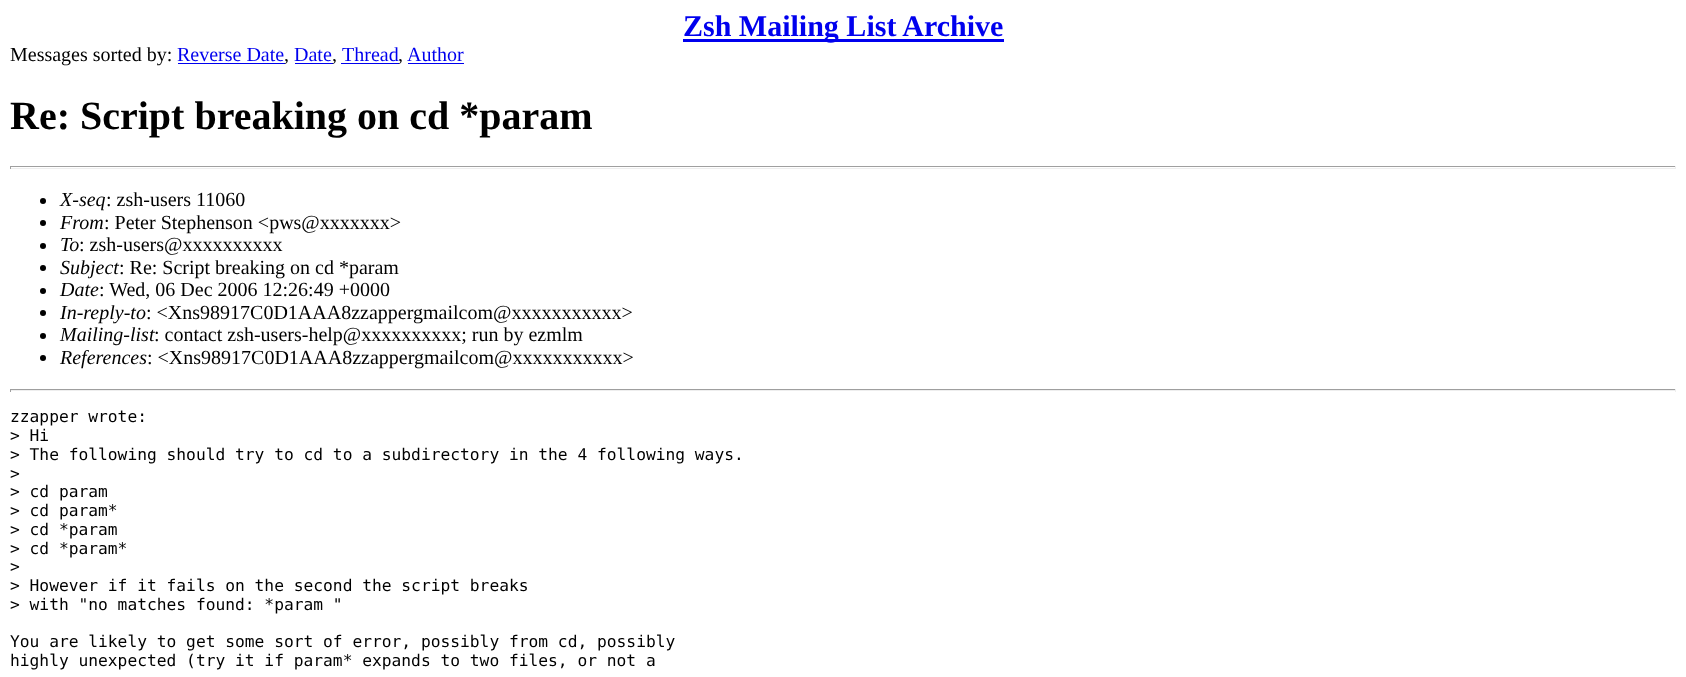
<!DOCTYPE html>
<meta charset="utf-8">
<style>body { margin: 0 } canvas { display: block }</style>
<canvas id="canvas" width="1686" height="677"></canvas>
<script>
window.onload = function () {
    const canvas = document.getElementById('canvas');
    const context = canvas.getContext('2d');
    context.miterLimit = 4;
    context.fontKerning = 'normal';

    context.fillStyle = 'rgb(255, 255, 255)';
    context.fillRect(0, 0, 1686, 677);
    context.fillStyle = 'rgb(0, 0, 238)';
    context.fillRect(683, 39, 321, 3);
    context.fillRect(178, 63, 107, 1);
    context.fillRect(295, 63, 38, 1);
    context.fillRect(341, 63, 58, 1);
    context.fillRect(408, 63, 56, 1);
    context.fillStyle = 'rgb(159, 159, 159)';
    context.fillRect(10, 166, 1666, 1);
    context.fillStyle = 'rgb(238, 238, 238)';
    context.fillRect(1675, 166, 1, 3);
    context.fillRect(10, 168, 1666, 1);
    context.fillStyle = 'rgb(159, 159, 159)';
    context.fillRect(10, 166, 1, 3);
    context.fillStyle = 'rgb(0, 0, 0)';
    context.beginPath();
    context.arc(43, 201, 3, 0, 2 * Math.PI);
    context.fill();
    context.beginPath();
    context.arc(43, 223, 3, 0, 2 * Math.PI);
    context.fill();
    context.beginPath();
    context.arc(43, 246, 3, 0, 2 * Math.PI);
    context.fill();
    context.beginPath();
    context.arc(43, 268, 3, 0, 2 * Math.PI);
    context.fill();
    context.beginPath();
    context.arc(43, 291, 3, 0, 2 * Math.PI);
    context.fill();
    context.beginPath();
    context.arc(43, 313, 3, 0, 2 * Math.PI);
    context.fill();
    context.beginPath();
    context.arc(43, 336, 3, 0, 2 * Math.PI);
    context.fill();
    context.beginPath();
    context.arc(43, 358, 3, 0, 2 * Math.PI);
    context.fill();
    context.fillStyle = 'rgb(159, 159, 159)';
    context.fillRect(10, 389, 1666, 1);
    context.fillStyle = 'rgb(238, 238, 238)';
    context.fillRect(1675, 389, 1, 3);
    context.fillRect(10, 390, 1666, 1);
    context.fillStyle = 'rgb(159, 159, 159)';
    context.fillRect(10, 389, 1, 3);
    context.font = 'bold 30px Liberation Serif';
    context.fillStyle = 'rgb(0, 0, 238)';
    context.fillText('Zsh Mailing List Archive', 683, 36);
    context.font = '20px Liberation Serif';
    context.fillStyle = 'rgb(0, 0, 0)';
    context.fillText('Messages sorted by:', 10, 61);
    context.fillStyle = 'rgb(0, 0, 238)';
    context.fillText('Reverse Date', 177, 61);
    context.fillStyle = 'rgb(0, 0, 0)';
    context.fillText(',', 284, 61);
    context.fillStyle = 'rgb(0, 0, 238)';
    context.fillText('Date', 294, 61);
    context.fillStyle = 'rgb(0, 0, 0)';
    context.fillText(',', 332, 61);
    context.fillStyle = 'rgb(0, 0, 238)';
    context.fillText('Thread', 342, 61);
    context.fillStyle = 'rgb(0, 0, 0)';
    context.fillText(',', 398, 61);
    context.fillStyle = 'rgb(0, 0, 238)';
    context.fillText('Author', 407, 61);
    context.font = 'bold 40px Liberation Serif';
    context.fillStyle = 'rgb(0, 0, 0)';
    context.fillText('Re: Script breaking on cd *param', 10, 129);
    context.font = 'italic 20px Liberation Serif';
    context.fillText('X-seq', 60, 206);
    context.font = '20px Liberation Serif';
    context.fillText(': zsh-users 11060', 106, 206);
    context.font = 'italic 20px Liberation Serif';
    context.fillText('From', 60, 229);
    context.font = '20px Liberation Serif';
    context.fillText(': Peter Stephenson <pws@xxxxxxx>', 104, 229);
    context.font = 'italic 20px Liberation Serif';
    context.fillText('To', 60, 251);
    context.font = '20px Liberation Serif';
    context.fillText(': zsh-users@xxxxxxxxxx', 79, 251);
    context.font = 'italic 20px Liberation Serif';
    context.fillText('Subject', 60, 274);
    context.font = '20px Liberation Serif';
    context.fillText(': Re: Script breaking on cd *param', 119, 274);
    context.font = 'italic 20px Liberation Serif';
    context.fillText('Date', 60, 296);
    context.font = '20px Liberation Serif';
    context.fillText(': Wed, 06 Dec 2006 12:26:49 +0000', 99, 296);
    context.font = 'italic 20px Liberation Serif';
    context.fillText('In-reply-to', 60, 319);
    context.font = '20px Liberation Serif';
    context.fillText(': <Xns98917C0D1AAA8zzappergmailcom@xxxxxxxxxxx>', 146, 319);
    context.font = 'italic 20px Liberation Serif';
    context.fillText('Mailing-list', 60, 341);
    context.font = '20px Liberation Serif';
    context.fillText(': contact zsh-users-help@xxxxxxxxxx; run by ezmlm', 154, 341);
    context.font = 'italic 20px Liberation Serif';
    context.fillText('References', 60, 364);
    context.font = '20px Liberation Serif';
    context.fillText(': <Xns98917C0D1AAA8zzappergmailcom@xxxxxxxxxxx>', 147, 364);
    context.font = '16.25px DejaVu Sans Mono';
    context.fillText('zzapper wrote:', 10, 422);
    context.fillText('> Hi', 10, 441);
    context.fillText('> The following should try to cd to a subdirectory in the 4 following ways.', 10, 460);
    context.fillText('>', 10, 479);
    context.fillText('> cd param', 10, 497);
    context.fillText('> cd param*', 10, 516);
    context.fillText('> cd *param', 10, 535);
    context.fillText('> cd *param*', 10, 554);
    context.fillText('>', 10, 572);
    context.fillText('> However if it fails on the second the script breaks', 10, 591);
    context.fillText('> with "no matches found: *param "', 10, 610);
    context.fillText('You are likely to get some sort of error, possibly from cd, possibly', 10, 647);
    context.fillText('highly unexpected (try it if param* expands to two files, or not a', 10, 666);
};
</script>
